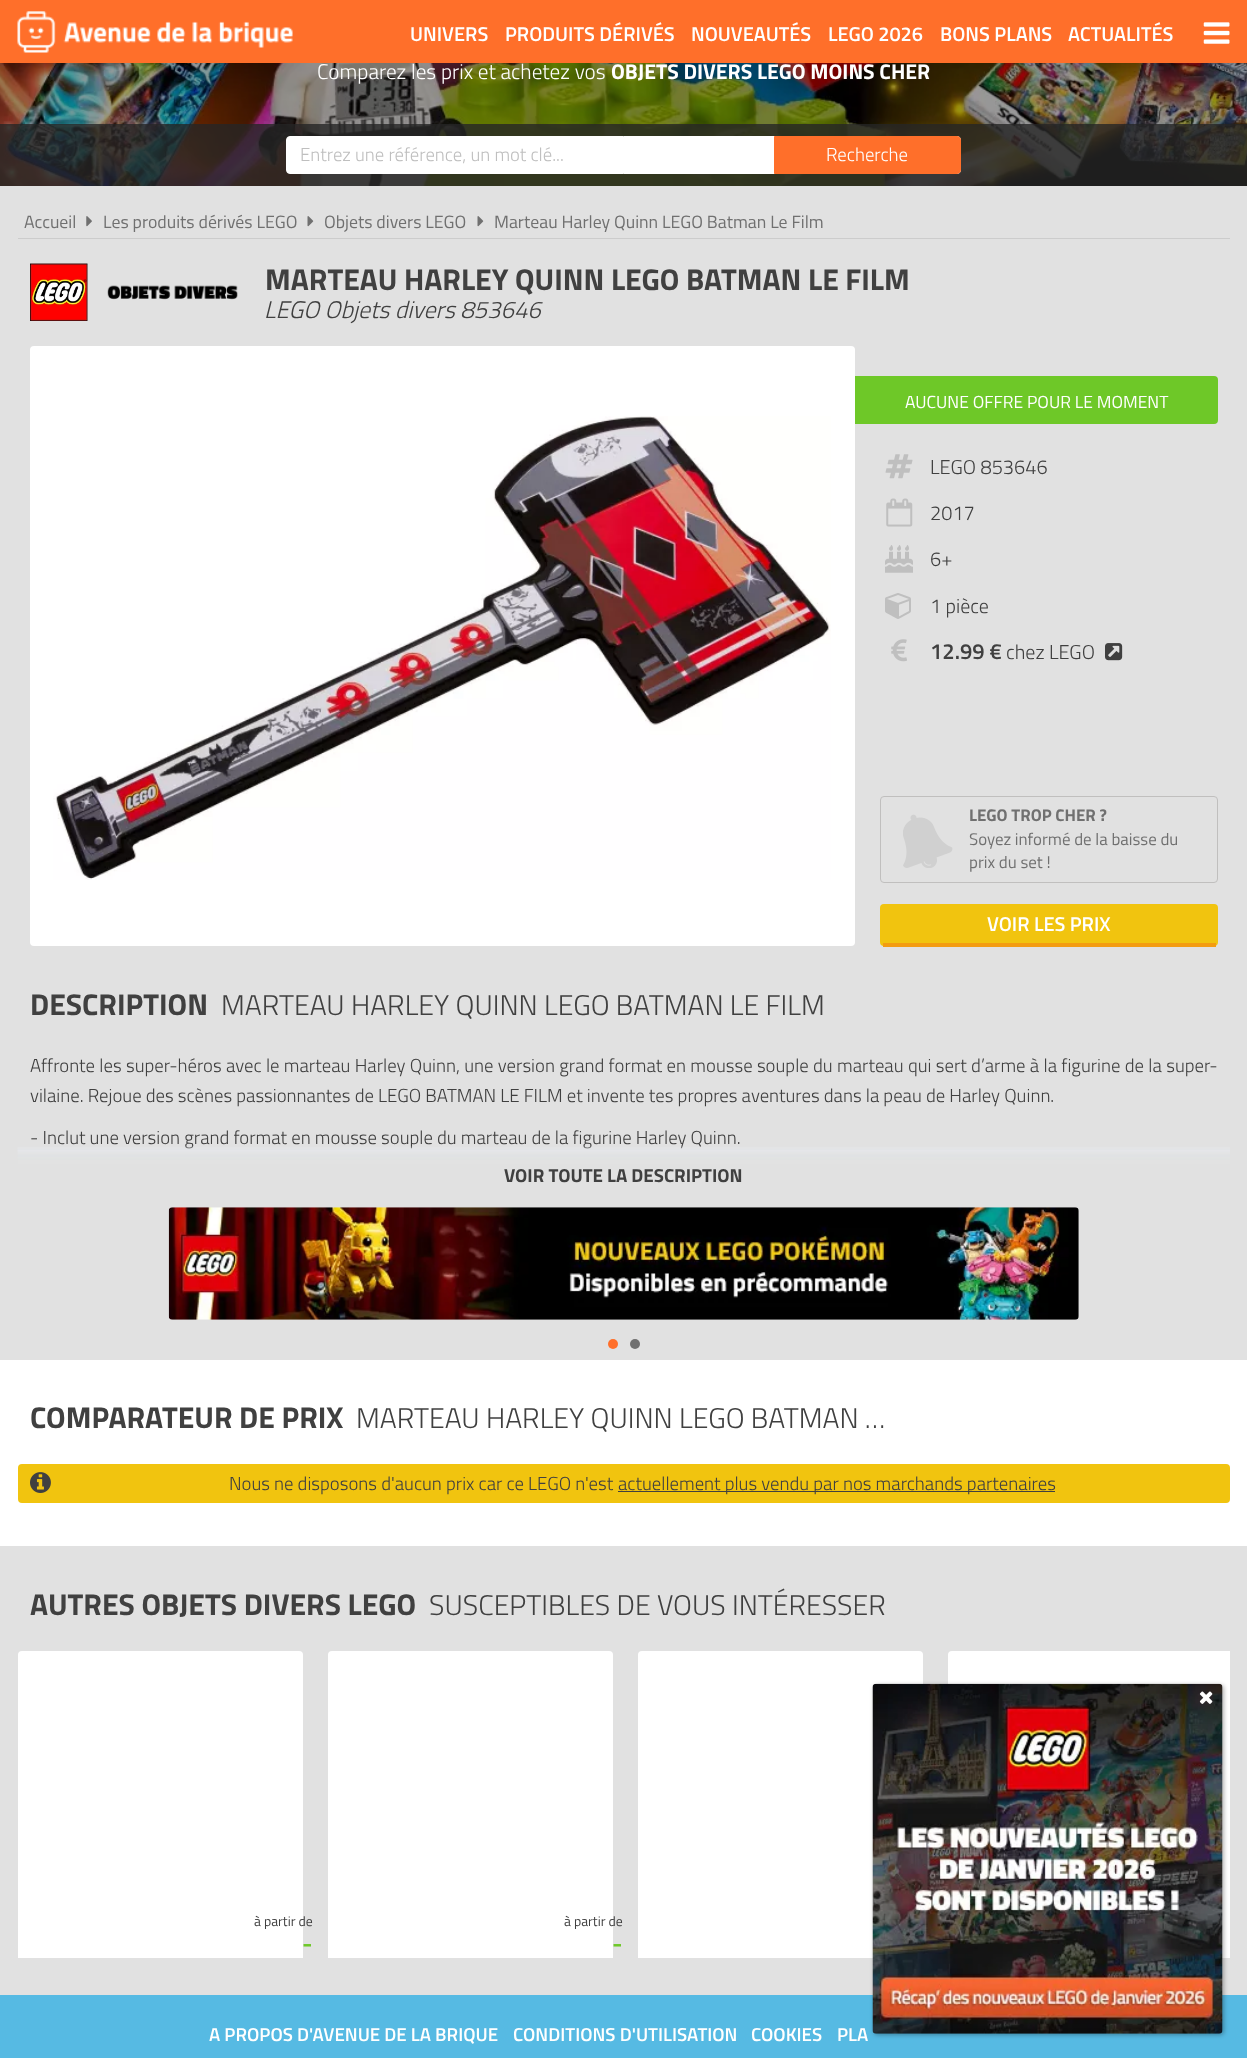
<!DOCTYPE html>
<meta charset="utf-8">
<style>body { margin: 0 } canvas { display: block }</style>
<canvas id="canvas" width="1247" height="2058"></canvas>
<img id="img1" src="images/1.png" hidden>
<img id="img2" src="images/2.png" hidden>
<img id="img3" src="images/3.png" hidden>
<img id="img4" src="images/4.png" hidden>
<img id="img5" src="images/5.png" hidden>
<img id="img6" src="images/6.png" hidden>
<img id="img7" src="images/7.png" hidden>
<img id="img8" src="images/8.png" hidden>
<img id="img9" src="images/9.png" hidden>
<img id="img10" src="images/10.png" hidden>
<img id="img11" src="images/11.png" hidden>
<img id="img12" src="images/12.png" hidden>
<img id="img13" src="images/13.png" hidden>
<img id="img14" src="images/14.png" hidden>
<img id="img15" src="images/15.png" hidden>
<img id="img16" src="images/18.png" hidden>
<img id="img17" src="images/19.png" hidden>
<img id="img18" src="images/20.png" hidden>
<img id="img19" src="images/16.png" hidden>
<img id="img20" src="images/17.png" hidden>
<script>
window.onload = function () {
    const canvas = document.getElementById('canvas');
    const context = canvas.getContext('2d');
    context.miterLimit = 4;
    context.fontKerning = 'normal';

    context.fillStyle = 'rgb(225, 225, 225)';
    context.fillRect(0, 0, 1247, 2058);
    context.fillStyle = 'rgb(255, 111, 42)';
    context.fillRect(0, 0, 1247, 63);
    context.drawImage(document.getElementById('img1'), 17, 11, 276, 42);
    context.drawImage(document.getElementById('img2'), 1203, 22, 27, 22);
    context.drawImage(document.getElementById('img3'), 0, 63, 1247, 123);
    context.fillStyle = 'rgba(38, 38, 38, 0.8)';
    context.fillRect(0, 124, 1247, 62);
    context.fillStyle = 'rgb(255, 255, 255)';
    context.beginPath();
    context.roundRect(286.5, 136.5, 674, 37, 3.5);
    context.fill();
    context.strokeStyle = 'rgb(255, 255, 255)';
    context.stroke();
    context.fillStyle = 'rgb(255, 111, 42)';
    context.beginPath();
    context.roundRect(774.5, 136.5, 186, 37, [0, 3.5, 3.5, 0]);
    context.fill();
    context.strokeStyle = 'rgb(255, 111, 42)';
    context.stroke();
    context.fillStyle = 'rgb(204, 204, 204)';
    context.fillRect(18, 238, 1212, 1);
    context.drawImage(document.getElementById('img4'), 86, 216, 6, 11);
    context.drawImage(document.getElementById('img5'), 307, 216, 7, 11);
    context.drawImage(document.getElementById('img5'), 477, 216, 7, 11);
    context.drawImage(document.getElementById('img6'), 30, 263, 58, 58);
    context.drawImage(document.getElementById('img7'), 107, 285, 131, 15);
    context.fillStyle = 'rgb(255, 255, 255)';
    context.beginPath();
    context.roundRect(30, 346, 825, 600, 4);
    context.fill();
    context.drawImage(document.getElementById('img8'), 53, 416, 778, 464);
    context.fillStyle = 'rgb(110, 200, 40)';
    context.beginPath();
    context.roundRect(855, 376, 363, 48, [0, 4, 4, 0]);
    context.fill();
    context.drawImage(document.getElementById('img9'), 885, 454, 28, 25);
    context.drawImage(document.getElementById('img10'), 886, 498, 27, 29);
    context.drawImage(document.getElementById('img11'), 885, 545, 28, 28);
    context.drawImage(document.getElementById('img12'), 885, 593, 26, 26);
    context.drawImage(document.getElementById('img13'), 891, 639, 16, 23);
    context.drawImage(document.getElementById('img14'), 1105, 643, 18, 18);
    context.drawImage(document.getElementById('img15'), 903, 814, 50, 54);
    context.beginPath();
    context.roundRect(880.5, 796.5, 337, 86, 3.5);
    context.strokeStyle = 'rgb(192, 191, 190)';
    context.stroke();
    context.fillStyle = 'rgb(241, 196, 15)';
    context.beginPath();
    context.roundRect(880, 904, 338, 42, 4);
    context.fill();
    context.fillStyle = 'rgb(243, 156, 17)';
    context.fillRect(883, 943, 333, 4);
    context.fillStyle = 'rgb(255, 111, 42)';
    context.beginPath();
    context.arc(613, 1344, 5, 0, 2 * Math.PI);
    context.fill();
    context.fillStyle = 'rgb(112, 112, 112)';
    context.beginPath();
    context.arc(635, 1344, 5, 0, 2 * Math.PI);
    context.fill();
    context.fillStyle = 'rgb(255, 255, 255)';
    context.fillRect(0, 1360, 1247, 186);
    context.fillStyle = 'rgb(241, 196, 15)';
    context.beginPath();
    context.roundRect(18, 1464, 1212, 39, 4);
    context.fill();
    context.drawImage(document.getElementById('img16'), 30, 1472, 21, 21);
    context.fillStyle = 'rgb(64, 64, 64)';
    context.fillRect(618, 1491, 437, 1);
    context.fillStyle = 'rgb(255, 255, 255)';
    context.beginPath();
    context.roundRect(18, 1651, 285, 307, [4, 4, 0, 0]);
    context.fill();
    context.beginPath();
    context.roundRect(328, 1651, 285, 307, [4, 4, 0, 0]);
    context.fill();
    context.beginPath();
    context.roundRect(638, 1651, 285, 307, [4, 4, 0, 0]);
    context.fill();
    context.save();
    context.beginPath();
    context.rect(18, 1651, 1212, 307);
    context.clip();
    context.beginPath();
    context.roundRect(948, 1651, 285, 307, [4, 4, 0, 0]);
    context.fill();
    context.restore();
    context.fillStyle = 'rgb(86, 186, 227)';
    context.fillRect(0, 1995, 1247, 63);
    context.fillStyle = 'rgba(0, 0, 0, 0.3)';
    context.filter = 'blur(2px)';
    context.beginPath();
    context.roundRect(874, 1685, 350, 350, 4);
    context.fill();
    context.filter = 'none';
    context.drawImage(document.getElementById('img17'), 872, 1683, 351, 351);
    context.drawImage(document.getElementById('img18'), 1199, 1691, 14, 13);
    context.font = '600 20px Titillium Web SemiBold';
    context.fillStyle = 'rgb(255, 255, 255)';
    context.fillText('UNIVERS', 410, 41);
    context.fillText('PRODUITS DÉRIVÉS', 505, 41);
    context.fillText('NOUVEAUTÉS', 691, 41);
    context.fillText('LEGO 2026', 828, 41);
    context.fillText('BONS PLANS', 940, 41);
    context.fillText('ACTUALITÉS', 1068, 41);
    context.font = '300 21.25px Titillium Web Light';
    context.fillText('Comparez les prix et achetez vos', 317, 79);
    context.font = 'bold 21.25px Titillium Web';
    context.fillText('OBJETS DIVERS LEGO MOINS CHER', 611, 79);
    context.font = '300 18.75px Titillium Web Light';
    context.fillStyle = 'rgb(191, 191, 191)';
    context.fillText('Entrez une référence, un mot clé...', 300, 161);
    context.fillStyle = 'rgb(255, 255, 255)';
    context.fillText('Recherche', 826, 161);
    context.font = '17.8px Titillium Web';
    context.fillStyle = 'rgb(112, 112, 112)';
    context.fillText('Accueil', 24, 228);
    context.fillText('Les produits dérivés LEGO', 103, 228);
    context.fillText('Objets divers LEGO', 324, 228);
    context.fillText('Marteau Harley Quinn LEGO Batman Le Film', 494, 228);
    context.font = 'bold 30px Titillium Web';
    context.fillStyle = 'rgb(64, 64, 64)';
    context.fillText('MARTEAU HARLEY QUINN LEGO BATMAN LE FILM', 265, 290);
    context.font = 'italic 300 24px Titillium Web Light';
    context.fillText('LEGO Objets divers 853646', 264, 318);
    context.font = '17.5px Titillium Web';
    context.fillStyle = 'rgb(255, 255, 255)';
    context.fillText('AUCUNE OFFRE POUR LE MOMENT', 905, 408);
    context.font = '300 20px Titillium Web Light';
    context.fillStyle = 'rgb(64, 64, 64)';
    context.fillText('LEGO 853646', 930, 474);
    context.fillText('2017', 930, 520);
    context.fillText('6+', 930, 566);
    context.fillText('1 pièce', 930, 613);
    context.font = '600 22px Titillium Web SemiBold';
    context.fillText('12.99 €', 930, 659);
    context.font = '300 20px Titillium Web Light';
    context.fillText('chez LEGO', 1006, 659);
    context.font = 'bold 16.9px Titillium Web';
    context.fillStyle = 'rgb(112, 112, 112)';
    context.fillText('LEGO TROP CHER ?', 969, 821);
    context.font = '16.9px Titillium Web';
    context.fillText('Soyez informé de la baisse du', 969, 845);
    context.fillText('prix du set !', 969, 868);
    context.font = '600 20px Titillium Web SemiBold';
    context.fillStyle = 'rgb(255, 255, 255)';
    context.fillText('VOIR LES PRIX', 987, 931);
    context.font = 'bold 30px Titillium Web';
    context.fillStyle = 'rgb(64, 64, 64)';
    context.fillText('DESCRIPTION', 30, 1015);
    context.font = '300 28.5px Titillium Web Light';
    context.fillText('MARTEAU HARLEY QUINN LEGO BATMAN LE FILM', 221, 1015);
    context.wordSpacing = '0.2px';
    context.font = '300 18.75px Titillium Web Light';
    context.fillText('Affronte les super-héros avec le marteau Harley Quinn, une version grand format en mousse souple du marteau qui sert d’arme à la figurine de la super-', 30, 1072);
    context.wordSpacing = '0px';
    context.fillText('vilaine. Rejoue des scènes passionnantes de LEGO BATMAN LE FILM et invente tes propres aventures dans la peau de Harley Quinn.', 30, 1102);
    context.fillText('- Inclut une version grand format en mousse souple du marteau de la figurine Harley Quinn.', 30, 1144);
    context.drawImage(document.getElementById('img19'), 17, 1146, 1213, 62);
    context.font = 'bold 18.75px Titillium Web';
    context.fillText('VOIR TOUTE LA DESCRIPTION', 504, 1182);
    context.drawImage(document.getElementById('img20'), 168, 1207, 911, 113);
    context.font = 'bold 30px Titillium Web';
    context.fillText('COMPARATEUR DE PRIX', 30, 1428);
    context.font = '300 28.5px Titillium Web Light';
    context.fillText('MARTEAU HARLEY QUINN LEGO BATMAN …', 356, 1428);
    context.font = '300 18.75px Titillium Web Light';
    context.fillText('Nous ne disposons d\'aucun prix car ce LEGO n\'est', 229, 1490);
    context.fillText('actuellement plus vendu par nos marchands partenaires', 618, 1490);
    context.font = 'bold 30px Titillium Web';
    context.fillText('AUTRES OBJETS DIVERS LEGO', 30, 1615);
    context.font = '300 28.5px Titillium Web Light';
    context.fillText('SUSCEPTIBLES DE VOUS INTÉRESSER', 429, 1615);
    context.font = '13.75px Titillium Web';
    context.fillText('à partir de', 254, 1926);
    context.font = '600 25px Titillium Web SemiBold';
    context.fillStyle = 'rgb(110, 200, 40)';
    context.fillText('-', 302, 1952);
    context.font = '13.75px Titillium Web';
    context.fillStyle = 'rgb(64, 64, 64)';
    context.fillText('à partir de', 564, 1926);
    context.font = '600 25px Titillium Web SemiBold';
    context.fillStyle = 'rgb(110, 200, 40)';
    context.fillText('-', 612, 1952);
    context.font = '600 18.75px Titillium Web SemiBold';
    context.fillStyle = 'rgb(255, 255, 255)';
    context.fillText('A PROPOS D\'AVENUE DE LA BRIQUE', 209, 2041);
    context.fillText('CONDITIONS D\'UTILISATION', 513, 2041);
    context.fillText('COOKIES', 751, 2041);
    context.fillText('PLA', 837, 2041);
};
</script>
